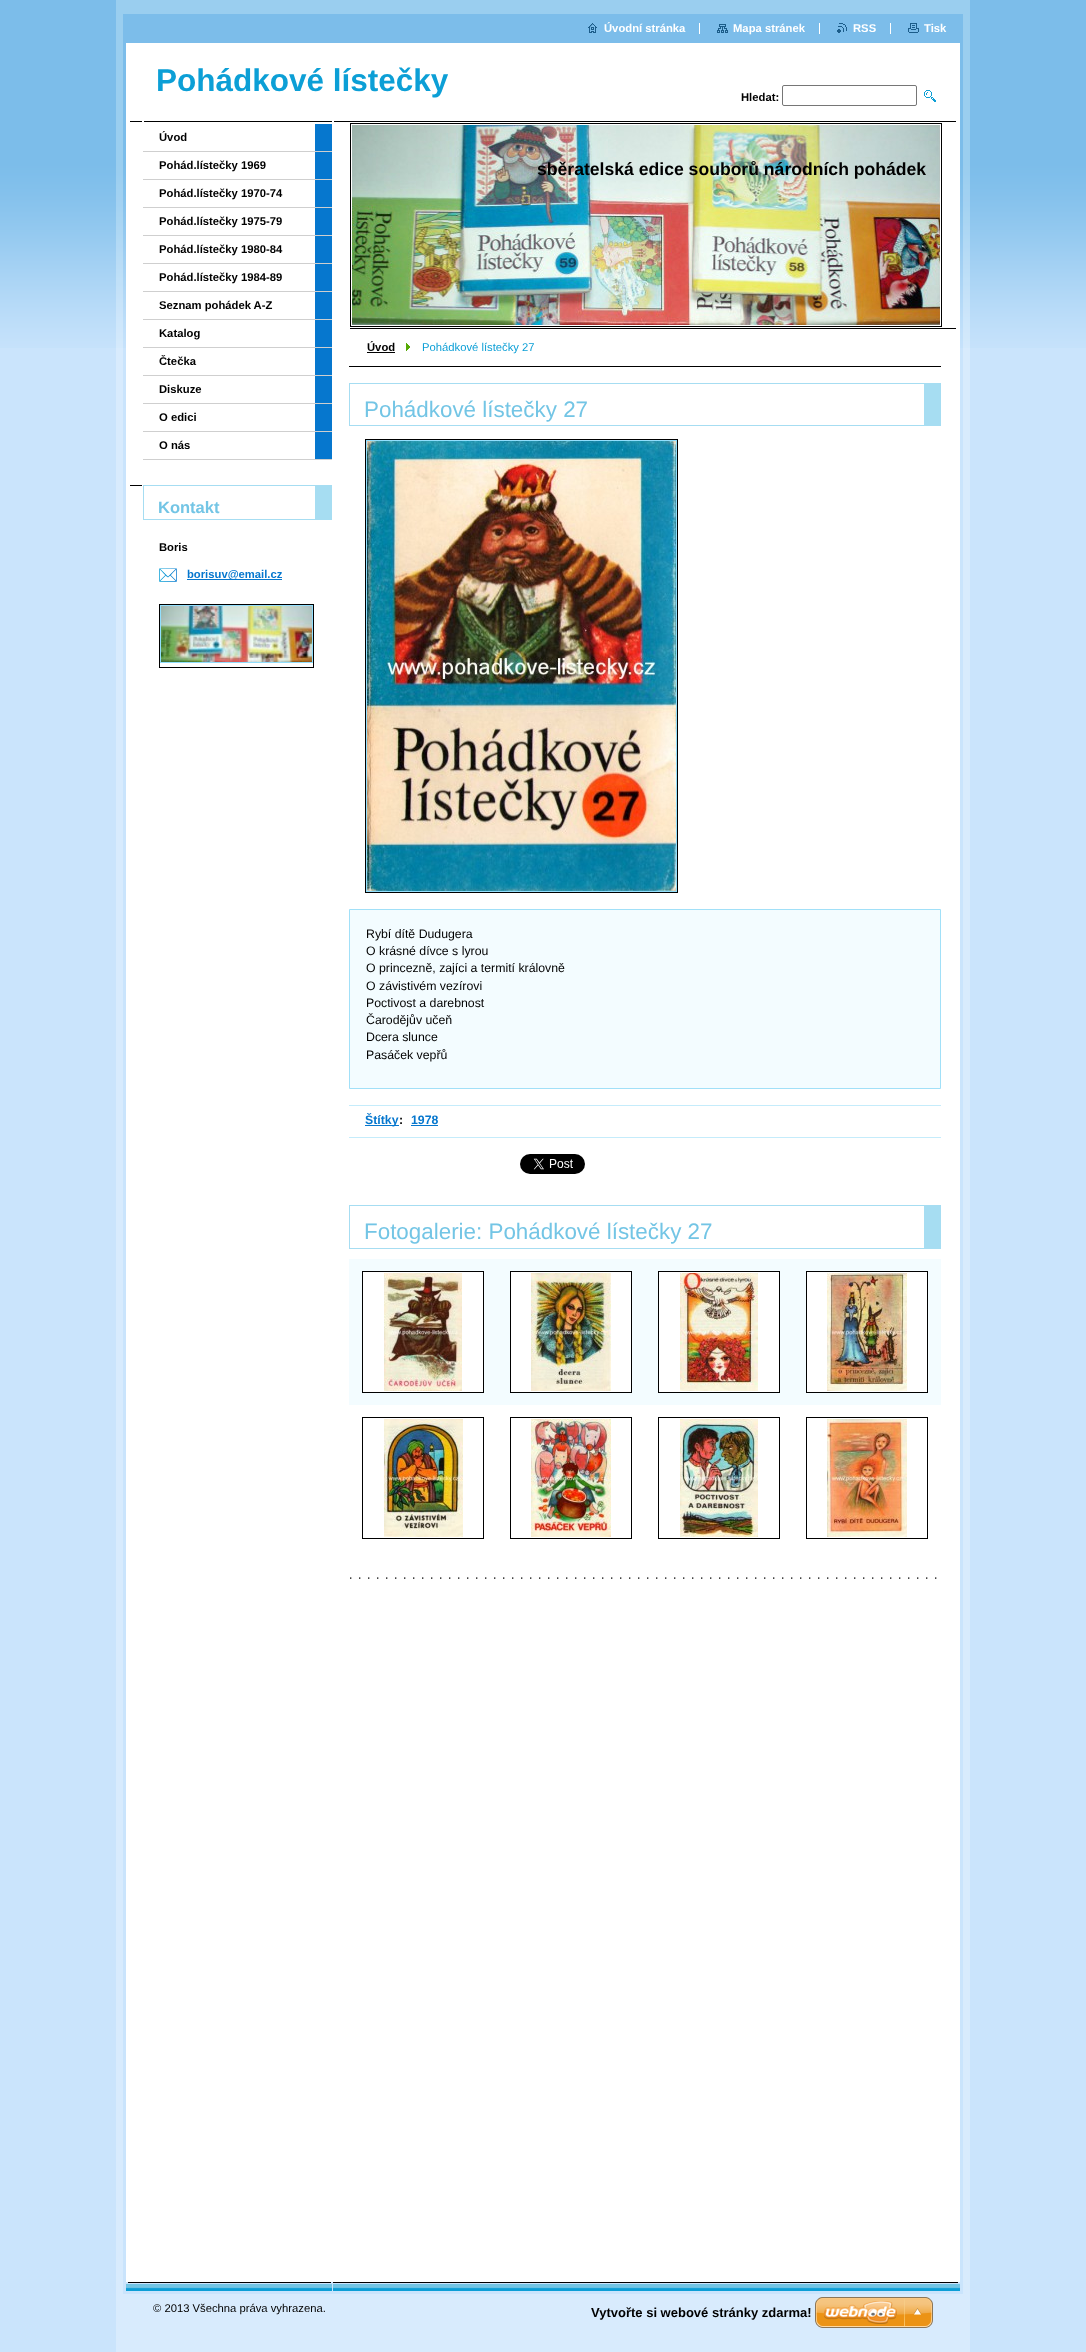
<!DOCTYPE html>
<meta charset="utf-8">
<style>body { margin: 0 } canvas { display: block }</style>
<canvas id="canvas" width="1086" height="2352"></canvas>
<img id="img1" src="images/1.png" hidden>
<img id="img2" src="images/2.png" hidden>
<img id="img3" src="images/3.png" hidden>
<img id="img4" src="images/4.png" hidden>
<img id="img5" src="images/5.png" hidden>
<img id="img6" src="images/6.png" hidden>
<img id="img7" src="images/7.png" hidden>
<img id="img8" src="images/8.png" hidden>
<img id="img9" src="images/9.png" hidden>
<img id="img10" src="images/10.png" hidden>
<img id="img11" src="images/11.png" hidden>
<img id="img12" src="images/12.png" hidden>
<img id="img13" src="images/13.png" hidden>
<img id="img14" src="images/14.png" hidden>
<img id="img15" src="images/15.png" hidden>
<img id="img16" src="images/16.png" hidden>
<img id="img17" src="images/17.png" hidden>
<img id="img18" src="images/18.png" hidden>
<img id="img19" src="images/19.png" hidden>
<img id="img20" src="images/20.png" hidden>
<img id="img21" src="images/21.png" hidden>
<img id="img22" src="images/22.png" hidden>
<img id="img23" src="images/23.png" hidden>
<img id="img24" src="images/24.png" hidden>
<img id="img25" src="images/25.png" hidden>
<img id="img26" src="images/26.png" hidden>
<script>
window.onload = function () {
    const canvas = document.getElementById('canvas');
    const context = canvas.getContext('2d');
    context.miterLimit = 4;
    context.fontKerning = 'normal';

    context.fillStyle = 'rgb(202, 228, 252)';
    context.fillRect(0, 0, 1086, 2352);
    context.drawImage(document.getElementById('img1'), 0, 0, 1086, 348);
    context.fillStyle = 'rgb(216, 235, 253)';
    context.fillRect(116, 348, 854, 2004);
    context.drawImage(document.getElementById('img2'), 123, 348, 840, 1934);
    context.drawImage(document.getElementById('img3'), 116, 0, 854, 348);
    context.fillStyle = 'rgb(255, 255, 255)';
    context.fillRect(126, 43, 834, 305);
    context.drawImage(document.getElementById('img4'), 588, 23, 9, 10);
    context.drawImage(document.getElementById('img5'), 717, 24, 11, 9);
    context.fillRect(699, 23, 1, 11);
    context.drawImage(document.getElementById('img6'), 837, 23, 10, 10);
    context.fillRect(819, 23, 1, 11);
    context.drawImage(document.getElementById('img7'), 908, 23, 11, 10);
    context.fillRect(890, 23, 1, 11);
    context.beginPath();
    context.roundRect(782.5, 85.5, 134, 20, 1.5);
    context.strokeStyle = 'rgb(118, 118, 118)';
    context.stroke();
    context.drawImage(document.getElementById('img8'), 924, 90, 12, 12);
    context.drawImage(document.getElementById('img9'), 130, 121, 202, 1);
    context.fillStyle = 'rgb(6, 119, 206)';
    context.fillRect(315, 124, 17, 335);
    context.fillStyle = 'rgb(207, 207, 207)';
    context.fillRect(143, 151, 189, 1);
    context.fillRect(143, 179, 189, 1);
    context.fillRect(143, 207, 189, 1);
    context.fillRect(143, 235, 189, 1);
    context.fillRect(143, 263, 189, 1);
    context.fillRect(143, 291, 189, 1);
    context.fillRect(143, 319, 189, 1);
    context.fillRect(143, 347, 189, 1);
    context.fillRect(143, 375, 189, 1);
    context.fillRect(143, 403, 189, 1);
    context.fillRect(143, 431, 189, 1);
    context.fillRect(143, 459, 189, 1);
    context.fillStyle = 'rgb(0, 0, 0)';
    context.fillRect(130, 485, 12, 1);
    context.fillStyle = 'rgb(166, 221, 242)';
    context.fillRect(143, 485, 172, 1);
    context.fillRect(315, 485, 17, 34);
    context.fillRect(143, 519, 189, 1);
    context.fillRect(143, 485, 1, 35);
    context.drawImage(document.getElementById('img10'), 159, 568, 18, 14);
    context.fillStyle = 'rgb(6, 119, 206)';
    context.fillRect(187, 579, 95, 1);
    context.strokeStyle = 'rgb(0, 0, 0)';
    context.strokeRect(159.5, 604.5, 154, 63);
    context.strokeStyle = 'rgb(146, 223, 253)';
    context.strokeRect(160.5, 605.5, 152, 57);
    context.drawImage(document.getElementById('img11'), 161, 606, 151, 56);
    context.fillStyle = 'rgb(0, 0, 0)';
    context.fillRect(334, 121, 622, 1);
    context.fillRect(350, 328, 606, 1);
    context.strokeStyle = 'rgb(0, 0, 0)';
    context.strokeRect(350.5, 123.5, 591, 203);
    context.drawImage(document.getElementById('img12'), 352, 125, 588, 200);
    context.fillRect(349, 366, 592, 1);
    context.fillRect(367, 352, 28, 1);
    context.drawImage(document.getElementById('img13'), 406, 343, 4, 8);
    context.fillStyle = 'rgb(166, 221, 242)';
    context.fillRect(349, 383, 575, 1);
    context.fillRect(924, 383, 17, 42);
    context.fillRect(349, 425, 592, 1);
    context.fillRect(349, 383, 1, 43);
    context.strokeRect(365.5, 439.5, 312, 453);
    context.strokeStyle = 'rgb(146, 223, 253)';
    context.strokeRect(366.5, 440.5, 310, 451);
    context.drawImage(document.getElementById('img14'), 367, 441, 309, 450);
    context.fillStyle = 'rgb(243, 252, 255)';
    context.beginPath();
    context.rect(349.5, 909.5, 591, 179);
    context.fill();
    context.strokeStyle = 'rgb(161, 224, 248)';
    context.stroke();
    context.fillStyle = 'rgb(197, 236, 251)';
    context.fillRect(349, 1105, 592, 1);
    context.fillRect(349, 1137, 592, 1);
    context.fillStyle = 'rgb(6, 119, 206)';
    context.fillRect(365, 1125, 34, 1);
    context.fillRect(411, 1125, 27, 1);
    context.drawImage(document.getElementById('img15'), 520, 1154, 65, 20);
    context.fillStyle = 'rgb(166, 221, 242)';
    context.fillRect(349, 1205, 575, 1);
    context.fillRect(924, 1205, 17, 43);
    context.fillRect(349, 1248, 592, 1);
    context.fillRect(349, 1205, 1, 44);
    context.fillStyle = 'rgb(243, 252, 255)';
    context.fillRect(349, 1259, 592, 146);
    context.fillStyle = 'rgb(255, 255, 255)';
    context.fillRect(363, 1272, 120, 120);
    context.fillStyle = 'rgb(0, 0, 0)';
    context.fillRect(362, 1271, 122, 1);
    context.fillRect(483, 1271, 1, 122);
    context.fillRect(362, 1392, 122, 1);
    context.fillRect(362, 1271, 1, 122);
    context.drawImage(document.getElementById('img16'), 384, 1273, 78, 118);
    context.fillStyle = 'rgb(255, 255, 255)';
    context.fillRect(511, 1272, 120, 120);
    context.fillStyle = 'rgb(0, 0, 0)';
    context.fillRect(510, 1271, 122, 1);
    context.fillRect(631, 1271, 1, 122);
    context.fillRect(510, 1392, 122, 1);
    context.fillRect(510, 1271, 1, 122);
    context.drawImage(document.getElementById('img17'), 531, 1273, 80, 118);
    context.fillStyle = 'rgb(255, 255, 255)';
    context.fillRect(659, 1272, 120, 120);
    context.fillStyle = 'rgb(0, 0, 0)';
    context.fillRect(658, 1271, 122, 1);
    context.fillRect(779, 1271, 1, 122);
    context.fillRect(658, 1392, 122, 1);
    context.fillRect(658, 1271, 1, 122);
    context.drawImage(document.getElementById('img18'), 680, 1273, 78, 118);
    context.fillStyle = 'rgb(255, 255, 255)';
    context.fillRect(807, 1272, 120, 120);
    context.fillStyle = 'rgb(0, 0, 0)';
    context.fillRect(806, 1271, 122, 1);
    context.fillRect(927, 1271, 1, 122);
    context.fillRect(806, 1392, 122, 1);
    context.fillRect(806, 1271, 1, 122);
    context.drawImage(document.getElementById('img19'), 827, 1273, 80, 118);
    context.fillRect(362, 1417, 122, 1);
    context.fillRect(483, 1417, 1, 122);
    context.fillRect(362, 1538, 122, 1);
    context.fillRect(362, 1417, 1, 122);
    context.drawImage(document.getElementById('img20'), 384, 1419, 79, 118);
    context.fillRect(510, 1417, 122, 1);
    context.fillRect(631, 1417, 1, 122);
    context.fillRect(510, 1538, 122, 1);
    context.fillRect(510, 1417, 1, 122);
    context.drawImage(document.getElementById('img21'), 531, 1419, 80, 118);
    context.fillRect(658, 1417, 122, 1);
    context.fillRect(779, 1417, 1, 122);
    context.fillRect(658, 1538, 122, 1);
    context.fillRect(658, 1417, 1, 122);
    context.drawImage(document.getElementById('img22'), 680, 1419, 78, 118);
    context.fillRect(806, 1417, 122, 1);
    context.fillRect(927, 1417, 1, 122);
    context.fillRect(806, 1538, 122, 1);
    context.fillRect(806, 1417, 1, 122);
    context.drawImage(document.getElementById('img23'), 827, 1419, 80, 118);
    context.drawImage(document.getElementById('img24'), 350, 1577, 587, 2);
    context.drawImage(document.getElementById('img25'), 123, 2282, 840, 12);
    context.drawImage(document.getElementById('img26'), 815, 2297, 118, 31);
    context.font = 'bold 11.25px Liberation Sans';
    context.fillStyle = 'rgb(255, 255, 255)';
    context.fillText('Úvodní stránka', 604, 32);
    context.fillText('Mapa stránek', 733, 32);
    context.fillText('RSS', 853, 32);
    context.fillText('Tisk', 924, 32);
    context.font = 'bold 31.5px Liberation Sans';
    context.fillStyle = 'rgb(12, 159, 214)';
    context.fillText('Pohádkové lístečky', 156, 91);
    context.font = 'bold 11.25px Liberation Sans';
    context.fillStyle = 'rgb(0, 0, 0)';
    context.fillText('Hledat:', 741, 101);
    context.fillText('Úvod', 159, 141);
    context.fillText('Pohád.lístečky 1969', 159, 169);
    context.fillText('Pohád.lístečky 1970-74', 159, 197);
    context.fillText('Pohád.lístečky 1975-79', 159, 225);
    context.fillText('Pohád.lístečky 1980-84', 159, 253);
    context.fillText('Pohád.lístečky 1984-89', 159, 281);
    context.fillText('Seznam pohádek A-Z', 159, 309);
    context.fillText('Katalog', 159, 337);
    context.fillText('Čtečka', 159, 365);
    context.fillText('Diskuze', 159, 393);
    context.fillText('O edici', 159, 421);
    context.fillText('O nás', 159, 449);
    context.font = 'bold 16.5px Liberation Sans';
    context.fillStyle = 'rgb(115, 197, 229)';
    context.fillText('Kontakt', 158, 513);
    context.font = 'bold 11.25px Liberation Sans';
    context.fillStyle = 'rgb(0, 0, 0)';
    context.fillText('Boris', 159, 551);
    context.fillStyle = 'rgb(6, 119, 206)';
    context.fillText('borisuv@email.cz', 187, 578);
    context.font = 'bold 17.6px Liberation Sans';
    context.fillStyle = 'rgb(0, 0, 0)';
    context.fillText('sběratelská edice souborů národních pohádek', 537, 175);
    context.font = 'bold 11.25px Liberation Sans';
    context.fillText('Úvod', 367, 351);
    context.font = '11.25px Liberation Sans';
    context.fillStyle = 'rgb(12, 159, 214)';
    context.fillText('Pohádkové lístečky 27', 422, 351);
    context.font = '22.4px Liberation Sans';
    context.fillStyle = 'rgb(115, 197, 229)';
    context.fillText('Pohádkové lístečky 27', 364, 417);
    context.font = '12.3px Liberation Sans';
    context.fillStyle = 'rgb(0, 0, 0)';
    context.fillText('Rybí dítě Dudugera', 366, 938);
    context.fillText('O krásné dívce s lyrou', 366, 955);
    context.fillText('O princezně, zajíci a termití královně', 366, 972);
    context.fillText('O závistivém vezírovi', 366, 990);
    context.fillText('Poctivost a darebnost', 366, 1007);
    context.fillText('Čarodějův učeň', 366, 1024);
    context.fillText('Dcera slunce', 366, 1041);
    context.fillText('Pasáček vepřů', 366, 1059);
    context.font = 'bold 12.3px Liberation Sans';
    context.fillStyle = 'rgb(6, 119, 206)';
    context.fillText('Štítky', 365, 1124);
    context.fillStyle = 'rgb(0, 0, 0)';
    context.fillText(':', 399, 1124);
    context.fillStyle = 'rgb(6, 119, 206)';
    context.fillText('1978', 411, 1124);
    context.font = '22.4px Liberation Sans';
    context.fillStyle = 'rgb(115, 197, 229)';
    context.fillText('Fotogalerie: Pohádkové lístečky 27', 364, 1239);
    context.font = '11.25px Liberation Sans';
    context.fillStyle = 'rgb(0, 0, 0)';
    context.fillText('© 2013 Všechna práva vyhrazena.', 153, 2312);
    context.font = 'bold 13px Liberation Sans';
    context.fillText('Vytvořte si webové stránky zdarma!', 591, 2317);
};
</script>
